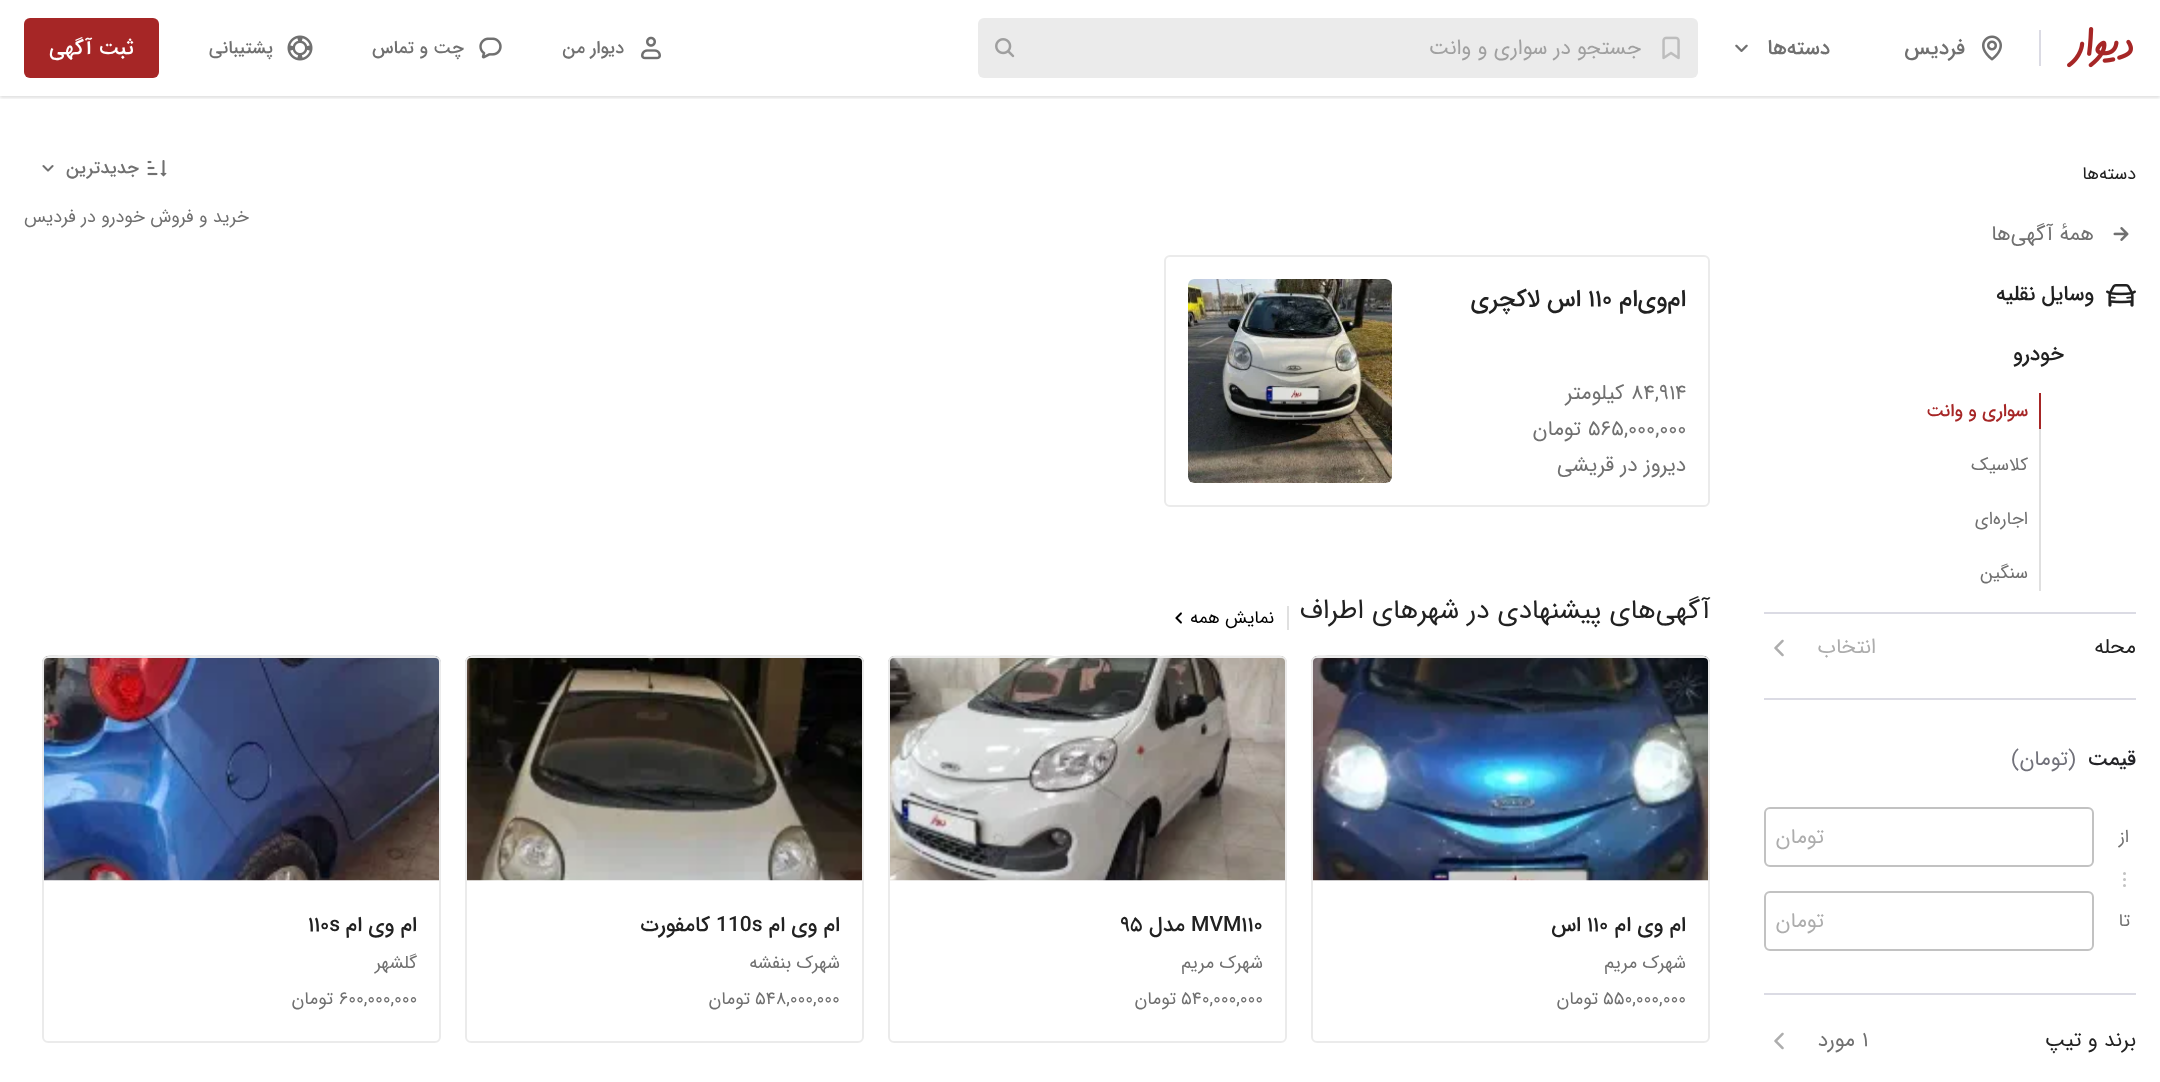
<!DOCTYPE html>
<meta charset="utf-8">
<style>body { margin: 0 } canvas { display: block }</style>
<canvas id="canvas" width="2160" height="1082"></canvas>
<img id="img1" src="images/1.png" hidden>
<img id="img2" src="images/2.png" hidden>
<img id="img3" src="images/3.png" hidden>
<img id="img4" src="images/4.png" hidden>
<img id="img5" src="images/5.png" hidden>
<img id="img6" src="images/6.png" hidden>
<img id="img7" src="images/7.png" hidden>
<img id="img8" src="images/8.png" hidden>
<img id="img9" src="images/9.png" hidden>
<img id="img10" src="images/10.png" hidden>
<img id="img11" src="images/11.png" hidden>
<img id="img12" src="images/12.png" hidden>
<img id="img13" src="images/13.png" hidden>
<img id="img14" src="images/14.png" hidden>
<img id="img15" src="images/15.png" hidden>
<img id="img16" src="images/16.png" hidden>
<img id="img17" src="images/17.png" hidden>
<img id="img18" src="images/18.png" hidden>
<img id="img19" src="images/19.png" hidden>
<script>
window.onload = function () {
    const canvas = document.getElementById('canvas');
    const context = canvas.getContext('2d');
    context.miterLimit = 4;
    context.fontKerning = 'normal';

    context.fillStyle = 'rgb(255, 255, 255)';
    context.fillRect(0, 0, 2160, 1082);
    context.save();
    context.beginPath();
    context.rect(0, 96, 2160, 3);
    context.clip();
    context.fillStyle = 'rgba(0, 0, 0, 0.12)';
    context.filter = 'blur(1.5px)';
    context.beginPath();
    context.rect(0, 2, 2160, 96);
    context.fill();
    context.filter = 'none';
    context.restore();
    context.drawImage(document.getElementById('img1'), 2067, 27, 66, 41);
    context.fillStyle = 'rgb(219, 219, 228)';
    context.fillRect(2039, 30, 2, 36);
    context.drawImage(document.getElementById('img2'), 1982, 35, 20, 26);
    context.drawImage(document.getElementById('img3'), 1735, 44, 13, 8);
    context.fillStyle = 'rgb(235, 235, 235)';
    context.beginPath();
    context.roundRect(978, 18, 720, 60, 6);
    context.fill();
    context.drawImage(document.getElementById('img4'), 1662, 36, 18, 24);
    context.drawImage(document.getElementById('img5'), 995, 38, 20, 20);
    context.drawImage(document.getElementById('img6'), 641, 36, 20, 24);
    context.drawImage(document.getElementById('img7'), 479, 37, 23, 22);
    context.drawImage(document.getElementById('img8'), 287, 35, 26, 26);
    context.fillStyle = 'rgb(166, 38, 38)';
    context.beginPath();
    context.roundRect(24, 18, 135, 60, 6);
    context.fill();
    context.drawImage(document.getElementById('img9'), 2113, 227, 16, 14);
    context.drawImage(document.getElementById('img10'), 2106, 284, 30, 23);
    context.fillRect(2039, 393, 2, 36);
    context.fillStyle = 'rgb(224, 224, 224)';
    context.fillRect(2039, 429, 2, 162);
    context.fillStyle = 'rgb(219, 219, 228)';
    context.fillRect(1764, 612, 372, 2);
    context.drawImage(document.getElementById('img11'), 1774, 639, 10, 18);
    context.fillRect(1764, 698, 372, 2);
    context.fillStyle = 'rgb(194, 194, 194)';
    context.beginPath();
    context.arc(2124.5, 879.5, 1.5, 0, 2 * Math.PI);
    context.fill();
    context.beginPath();
    context.arc(2124.5, 873.5, 1.5, 0, 2 * Math.PI);
    context.fill();
    context.beginPath();
    context.arc(2124.5, 885.5, 1.5, 0, 2 * Math.PI);
    context.fill();
    context.beginPath();
    context.roundRect(1765, 808, 328, 58, 5);
    context.strokeStyle = 'rgb(194, 194, 194)';
    context.lineWidth = 2;
    context.stroke();
    context.beginPath();
    context.roundRect(1765, 892, 328, 58, 5);
    context.stroke();
    context.fillStyle = 'rgb(219, 219, 228)';
    context.fillRect(1764, 993, 372, 2);
    context.drawImage(document.getElementById('img11'), 1774, 1032, 10, 18);
    context.drawImage(document.getElementById('img12'), 147, 160, 20, 17);
    context.drawImage(document.getElementById('img13'), 42, 165, 12, 7);
    context.fillStyle = 'rgb(245, 245, 245)';
    context.beginPath();
    context.roundRect(1188, 279, 204, 204, 6);
    context.fill();
    context.drawImage(document.getElementById('img14'), 1188, 279, 204, 204);
    context.beginPath();
    context.roundRect(1165, 256, 544, 250, 5);
    context.strokeStyle = 'rgb(235, 235, 235)';
    context.stroke();
    context.fillStyle = 'rgb(224, 224, 224)';
    context.fillRect(1287, 606, 2, 24);
    context.drawImage(document.getElementById('img15'), 1175, 612, 7, 12);
    context.drawImage(document.getElementById('img16'), 1311, 655, 399, 226);
    context.beginPath();
    context.roundRect(1312, 657, 397, 385, 5);
    context.strokeStyle = 'rgb(255, 255, 255)';
    context.stroke();
    context.beginPath();
    context.roundRect(1312, 657, 397, 385, 5);
    context.strokeStyle = 'rgba(0, 0, 0, 0.08)';
    context.stroke();
    context.drawImage(document.getElementById('img17'), 888, 655, 399, 226);
    context.beginPath();
    context.roundRect(889, 657, 397, 385, 5);
    context.strokeStyle = 'rgb(255, 255, 255)';
    context.stroke();
    context.beginPath();
    context.roundRect(889, 657, 397, 385, 5);
    context.strokeStyle = 'rgba(0, 0, 0, 0.08)';
    context.stroke();
    context.drawImage(document.getElementById('img18'), 465, 655, 399, 226);
    context.beginPath();
    context.roundRect(466, 657, 397, 385, 5);
    context.strokeStyle = 'rgb(255, 255, 255)';
    context.stroke();
    context.beginPath();
    context.roundRect(466, 657, 397, 385, 5);
    context.strokeStyle = 'rgba(0, 0, 0, 0.08)';
    context.stroke();
    context.drawImage(document.getElementById('img19'), 42, 655, 399, 226);
    context.beginPath();
    context.roundRect(43, 657, 397, 385, 5);
    context.strokeStyle = 'rgb(255, 255, 255)';
    context.stroke();
    context.beginPath();
    context.roundRect(43, 657, 397, 385, 5);
    context.strokeStyle = 'rgba(0, 0, 0, 0.08)';
    context.stroke();
    context.direction = 'rtl';
    context.font = '500 21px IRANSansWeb';
    context.fillStyle = 'rgb(112, 112, 112)';
    context.fillText('فردیس', 1965, 54);
    context.fillText('دسته‌ها', 1830, 54);
    context.font = '21px IRANSansWeb';
    context.fillStyle = 'rgb(160, 160, 160)';
    context.fillText('جستجو در سواری و وانت', 1641, 54);
    context.font = '500 18px IRANSansWeb';
    context.fillStyle = 'rgb(112, 112, 112)';
    context.fillText('دیوار من', 624, 53);
    context.fillText('چت و تماس', 464, 53);
    context.fillText('پشتیبانی', 273, 53);
    context.font = '500 21px IRANSansWeb';
    context.fillStyle = 'rgb(255, 255, 255)';
    context.fillText('ثبت آگهی', 134, 54);
    context.font = '18px IRANSansWeb';
    context.fillStyle = 'rgb(33, 33, 33)';
    context.fillText('دسته‌ها', 2136, 179);
    context.font = '21px IRANSansWeb';
    context.fillStyle = 'rgb(112, 112, 112)';
    context.fillText('همهٔ آگهی‌ها', 2094, 240);
    context.font = '500 21px IRANSansWeb';
    context.fillStyle = 'rgb(33, 33, 33)';
    context.fillText('وسایل نقلیه', 2094, 300);
    context.fillText('خودرو', 2064, 360);
    context.font = '500 18px IRANSansWeb';
    context.fillStyle = 'rgb(166, 38, 38)';
    context.fillText('سواری و وانت', 2028, 416);
    context.font = '18px IRANSansWeb';
    context.fillStyle = 'rgb(112, 112, 112)';
    context.fillText('کلاسیک', 2028, 470);
    context.fillText('اجاره‌ای', 2028, 524);
    context.fillText('سنگین', 2028, 578);
    context.font = '21px IRANSansWeb';
    context.fillStyle = 'rgb(33, 33, 33)';
    context.fillText('محله', 2136, 653);
    context.fillStyle = 'rgb(173, 173, 173)';
    context.fillText('انتخاب', 1876, 653);
    context.font = '500 21px IRANSansWeb';
    context.fillStyle = 'rgb(36, 36, 40)';
    context.fillText('قیمت', 2136, 765);
    context.font = '21px IRANSansWeb';
    context.fillStyle = 'rgb(113, 113, 122)';
    context.fillText('(تومان)', 2076, 765);
    context.font = '18px IRANSansWeb';
    context.fillStyle = 'rgb(112, 112, 112)';
    context.fillText('از', 2129, 842);
    context.fillText('تا', 2130, 926);
    context.font = '21px IRANSansWeb';
    context.fillStyle = 'rgb(173, 173, 173)';
    context.fillText('تومان', 1824, 843);
    context.fillText('تومان', 1824, 927);
    context.fillStyle = 'rgb(33, 33, 33)';
    context.fillText('برند و تیپ', 2136, 1046);
    context.direction = 'ltr';
    context.fillStyle = 'rgb(112, 112, 112)';
    context.fillText('۱', 1862, 1046);
    context.direction = 'rtl';
    context.fillText('مورد', 1855, 1046);
    context.font = '500 18px IRANSansWeb';
    context.fillText('جدیدترین', 139, 173);
    context.font = '18px IRANSansWeb';
    context.fillText('خرید و فروش خودرو در فردیس', 249, 222);
    context.font = '500 24px IRANSansWeb';
    context.fillStyle = 'rgb(33, 33, 33)';
    context.fillText('ام‌وی‌ام', 1686, 306);
    context.direction = 'ltr';
    context.fillText('۱۱۰', 1588, 306);
    context.direction = 'rtl';
    context.fillText('اس لاکچری', 1581, 306);
    context.direction = 'ltr';
    context.font = '21px IRANSansWeb';
    context.fillStyle = 'rgb(112, 112, 112)';
    context.fillText('۸۴,۹۱۴', 1631, 399);
    context.direction = 'rtl';
    context.fillText('کیلومتر', 1624, 399);
    context.direction = 'ltr';
    context.fillText('۵۶۵,۰۰۰,۰۰۰', 1588, 435);
    context.direction = 'rtl';
    context.fillText('تومان', 1581, 435);
    context.fillText('دیروز در قریشی', 1686, 471);
    context.font = '27px IRANSansWeb';
    context.fillStyle = 'rgb(33, 33, 33)';
    context.fillText('آگهی‌های پیشنهادی در شهرهای اطراف', 1710, 618);
    context.font = '18px IRANSansWeb';
    context.fillStyle = 'rgb(0, 0, 0)';
    context.fillText('نمایش همه', 1274, 623);
    context.font = '500 21px IRANSansWeb';
    context.fillStyle = 'rgb(33, 33, 33)';
    context.fillText('ام وی ام', 1686, 931);
    context.direction = 'ltr';
    context.fillText('۱۱۰', 1587, 931);
    context.direction = 'rtl';
    context.fillText('اس', 1581, 931);
    context.font = '18px IRANSansWeb';
    context.fillStyle = 'rgb(112, 112, 112)';
    context.fillText('شهرک مریم', 1686, 968);
    context.direction = 'ltr';
    context.fillText('۵۵۰,۰۰۰,۰۰۰', 1603, 1004);
    context.direction = 'rtl';
    context.fillText('تومان', 1598, 1004);
    context.direction = 'ltr';
    context.font = '500 21px IRANSansWeb';
    context.fillStyle = 'rgb(33, 33, 33)';
    context.fillText('MVM۱۱۰', 1191, 931);
    context.direction = 'rtl';
    context.fillText('مدل', 1185, 931);
    context.direction = 'ltr';
    context.fillText('۹۵', 1120, 931);
    context.direction = 'rtl';
    context.font = '18px IRANSansWeb';
    context.fillStyle = 'rgb(112, 112, 112)';
    context.fillText('شهرک مریم', 1263, 968);
    context.direction = 'ltr';
    context.fillText('۵۴۰,۰۰۰,۰۰۰', 1181, 1004);
    context.direction = 'rtl';
    context.fillText('تومان', 1176, 1004);
    context.font = '500 21px IRANSansWeb';
    context.fillStyle = 'rgb(33, 33, 33)';
    context.fillText('ام وی ام', 840, 931);
    context.direction = 'ltr';
    context.fillText('110s', 716, 931);
    context.direction = 'rtl';
    context.fillText('کامفورت', 710, 931);
    context.font = '18px IRANSansWeb';
    context.fillStyle = 'rgb(112, 112, 112)';
    context.fillText('شهرک بنفشه', 840, 968);
    context.direction = 'ltr';
    context.fillText('۵۴۸,۰۰۰,۰۰۰', 755, 1004);
    context.direction = 'rtl';
    context.fillText('تومان', 750, 1004);
    context.font = '500 21px IRANSansWeb';
    context.fillStyle = 'rgb(33, 33, 33)';
    context.fillText('ام وی ام', 417, 931);
    context.direction = 'ltr';
    context.fillText('۱۱۰s', 308, 931);
    context.direction = 'rtl';
    context.font = '18px IRANSansWeb';
    context.fillStyle = 'rgb(112, 112, 112)';
    context.fillText('گلشهر', 417, 968);
    context.direction = 'ltr';
    context.fillText('۶۰۰,۰۰۰,۰۰۰', 339, 1004);
    context.direction = 'rtl';
    context.fillText('تومان', 333, 1004);
};
</script>
